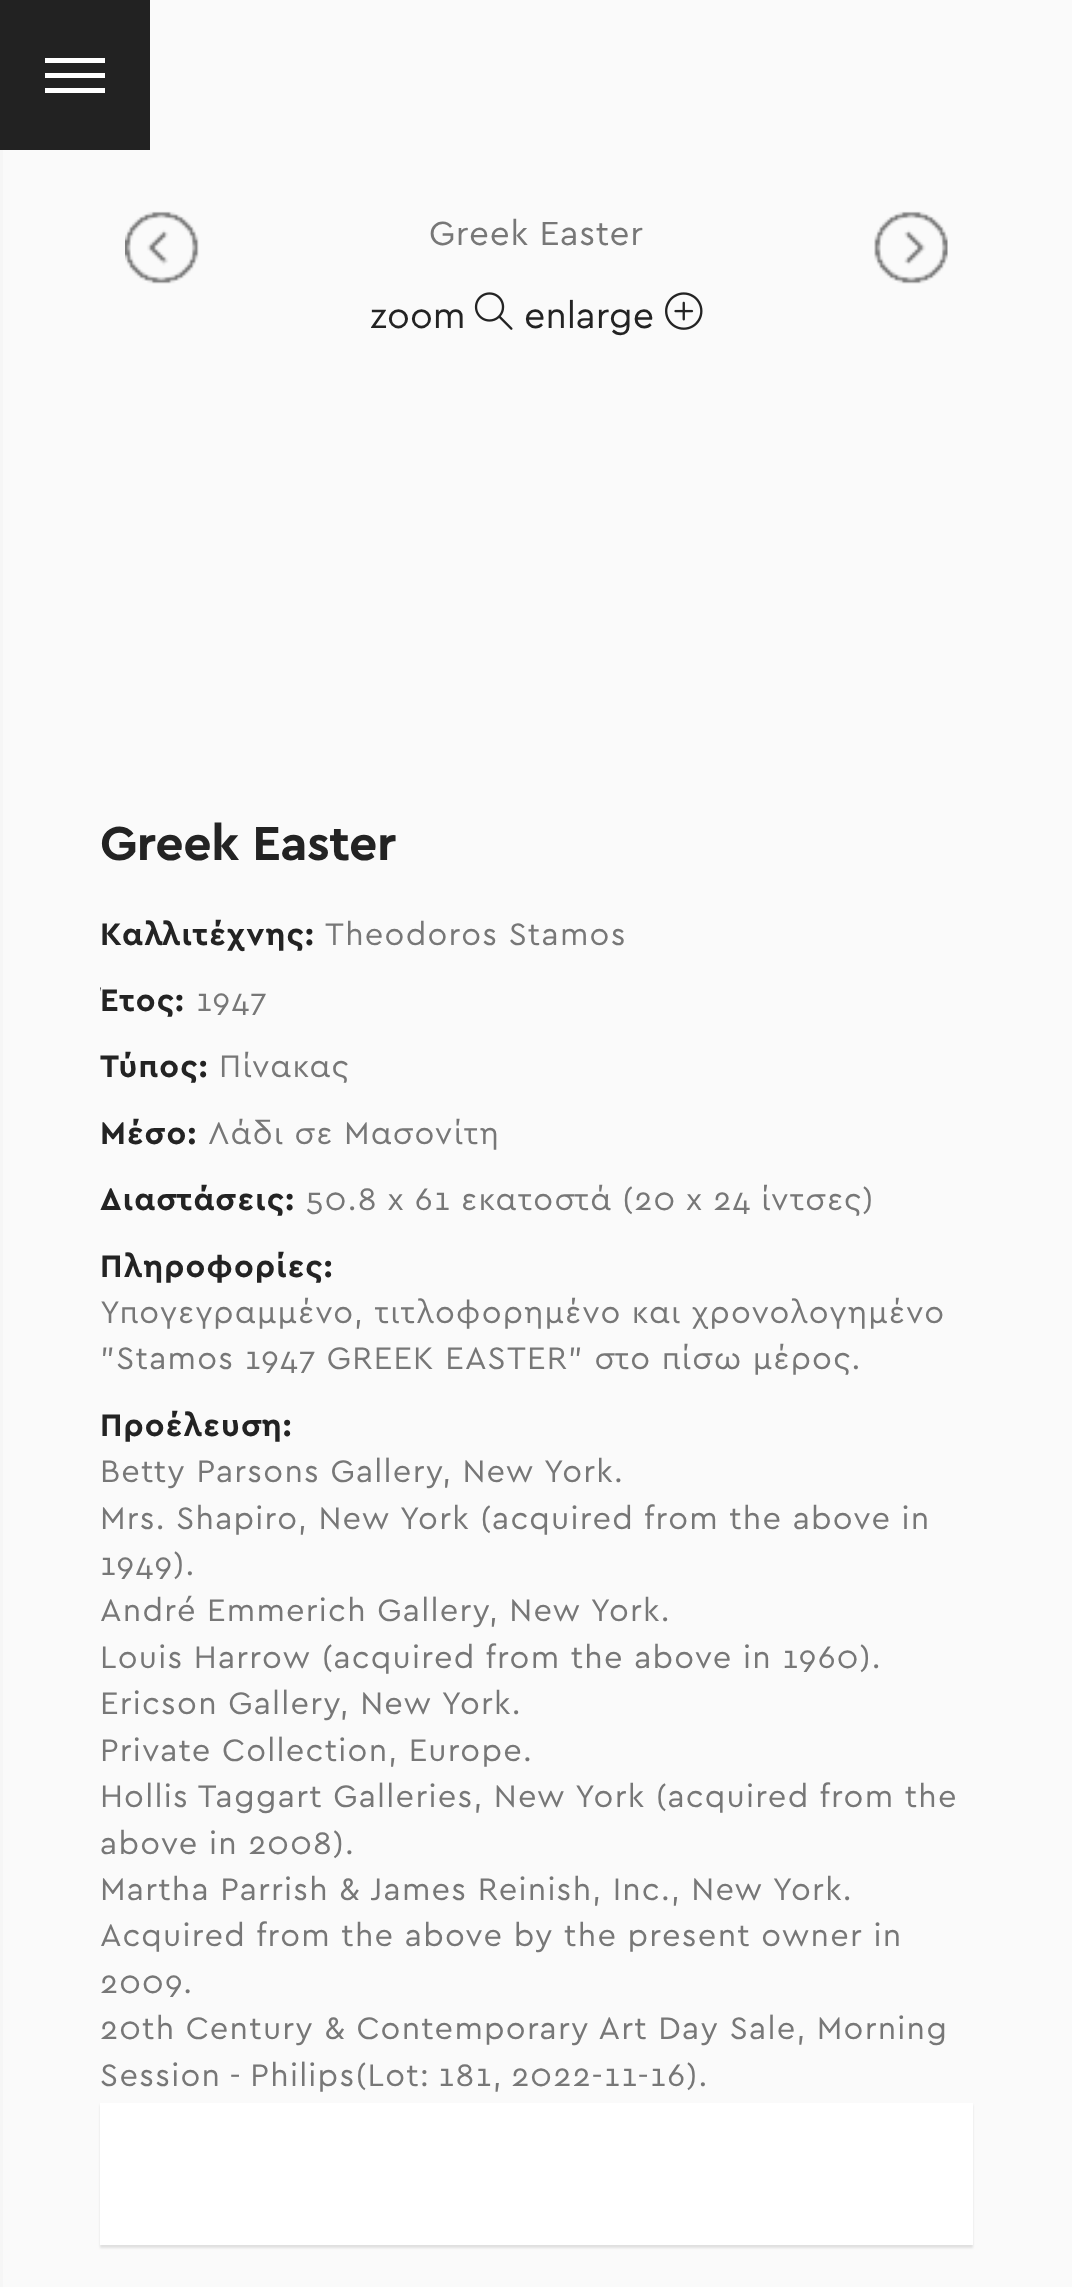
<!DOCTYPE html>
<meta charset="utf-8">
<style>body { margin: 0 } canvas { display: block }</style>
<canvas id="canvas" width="1072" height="2287"></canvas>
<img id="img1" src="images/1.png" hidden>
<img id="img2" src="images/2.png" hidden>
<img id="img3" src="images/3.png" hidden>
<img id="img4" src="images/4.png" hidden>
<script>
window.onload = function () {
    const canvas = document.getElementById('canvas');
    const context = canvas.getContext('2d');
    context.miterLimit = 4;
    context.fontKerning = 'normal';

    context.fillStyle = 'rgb(250, 250, 250)';
    context.fillRect(0, 0, 1072, 2287);
    context.fillStyle = 'rgb(34, 34, 34)';
    context.fillRect(0, 0, 150, 150);
    context.fillStyle = 'rgb(255, 255, 255)';
    context.fillRect(45, 58, 60, 5);
    context.fillRect(45, 73, 60, 5);
    context.fillRect(45, 88, 60, 5);
    context.fillStyle = 'rgb(246, 246, 246)';
    context.fillRect(0, 150, 3, 2137);
    context.drawImage(document.getElementById('img1'), 125, 211, 74, 73);
    context.drawImage(document.getElementById('img2'), 874, 211, 74, 73);
    context.drawImage(document.getElementById('img3'), 474, 292, 39, 38);
    context.drawImage(document.getElementById('img4'), 665, 292, 38, 38);
    context.fillStyle = 'rgba(0, 0, 0, 0.1)';
    context.filter = 'blur(1px)';
    context.beginPath();
    context.rect(100, 2105, 873, 143);
    context.fill();
    context.filter = 'none';
    context.fillStyle = 'rgb(255, 255, 255)';
    context.fillRect(100, 2103, 873, 142);
    context.letterSpacing = '0.75px';
    context.font = '35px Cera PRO';
    context.fillStyle = 'rgb(119, 119, 119)';
    context.fillText('Greek Easter', 429, 245);
    context.letterSpacing = '0px';
    context.font = '37.5px Cera PRO';
    context.fillStyle = 'rgb(35, 35, 35)';
    context.fillText('zoom', 370, 328);
    context.fillText('enlarge', 524, 328);
    context.letterSpacing = '-0.5px';
    context.font = 'bold 50px Cera PRO';
    context.fillText('Greek Easter', 100, 860);
    context.letterSpacing = '1.25px';
    context.font = 'bold 32.5px Cera PRO';
    context.fillText('Καλλιτέχνης:', 100, 945);
    context.font = '32.5px Cera PRO';
    context.fillStyle = 'rgb(119, 119, 119)';
    context.fillText('Theodoros Stamos', 325, 945);
    context.save();
    context.beginPath();
    context.rect(100, 915, 873, 1363);
    context.clip();
    context.font = 'bold 32.5px Cera PRO';
    context.fillStyle = 'rgb(35, 35, 35)';
    context.fillText('Έτος', 100, 1011);
    context.restore();
    context.font = 'bold 32.5px Cera PRO';
    context.fillStyle = 'rgb(35, 35, 35)';
    context.fillText(':', 175, 1011);
    context.font = '32.5px Cera PRO';
    context.fillStyle = 'rgb(119, 119, 119)';
    context.fillText('1947', 196, 1011);
    context.font = 'bold 32.5px Cera PRO';
    context.fillStyle = 'rgb(35, 35, 35)';
    context.fillText('Τύπος:', 100, 1077);
    context.font = '32.5px Cera PRO';
    context.fillStyle = 'rgb(119, 119, 119)';
    context.fillText('Πίνακας', 219, 1077);
    context.font = 'bold 32.5px Cera PRO';
    context.fillStyle = 'rgb(35, 35, 35)';
    context.fillText('Μέσο:', 100, 1144);
    context.font = '32.5px Cera PRO';
    context.fillStyle = 'rgb(119, 119, 119)';
    context.fillText('Λάδι σε Μασονίτη', 208, 1144);
    context.font = 'bold 32.5px Cera PRO';
    context.fillStyle = 'rgb(35, 35, 35)';
    context.fillText('Διαστάσεις:', 100, 1210);
    context.wordSpacing = '-0.5px';
    context.font = '32.5px Cera PRO';
    context.fillStyle = 'rgb(119, 119, 119)';
    context.fillText('50.8 x 61 εκατοστά (20 x 24 ίντσες)', 306, 1210);
    context.wordSpacing = '0px';
    context.font = 'bold 32.5px Cera PRO';
    context.fillStyle = 'rgb(35, 35, 35)';
    context.fillText('Πληροφορίες:', 100, 1277);
    context.font = '32.5px Cera PRO';
    context.fillStyle = 'rgb(119, 119, 119)';
    context.fillText('Υπογεγραμμένο, τιτλοφορημένο και χρονολογημένο', 100, 1323);
    context.fillText('"Stamos 1947 GREEK EASTER" στο πίσω μέρος.', 100, 1369);
    context.font = 'bold 32.5px Cera PRO';
    context.fillStyle = 'rgb(35, 35, 35)';
    context.fillText('Προέλευση:', 100, 1436);
    context.font = '32.5px Cera PRO';
    context.fillStyle = 'rgb(119, 119, 119)';
    context.fillText('Betty Parsons Gallery, New York.', 100, 1482);
    context.fillText('Mrs. Shapiro, New York (acquired from the above in', 100, 1529);
    context.fillText('1949).', 100, 1575);
    context.fillText('André Emmerich Gallery, New York.', 100, 1621);
    context.fillText('Louis Harrow (acquired from the above in 1960).', 100, 1668);
    context.fillText('Ericson Gallery, New York.', 100, 1714);
    context.fillText('Private Collection, Europe.', 100, 1761);
    context.fillText('Hollis Taggart Galleries, New York (acquired from the', 100, 1807);
    context.fillText('above in 2008).', 100, 1854);
    context.fillText('Martha Parrish & James Reinish, Inc., New York.', 100, 1900);
    context.fillText('Acquired from the above by the present owner in', 100, 1946);
    context.fillText('2009.', 100, 1993);
    context.fillText('20th Century & Contemporary Art Day Sale, Morning', 100, 2039);
    context.wordSpacing = '-2px';
    context.fillText('Session - Philips(Lot: 181, 2022-11-16).', 100, 2086);
};
</script>
